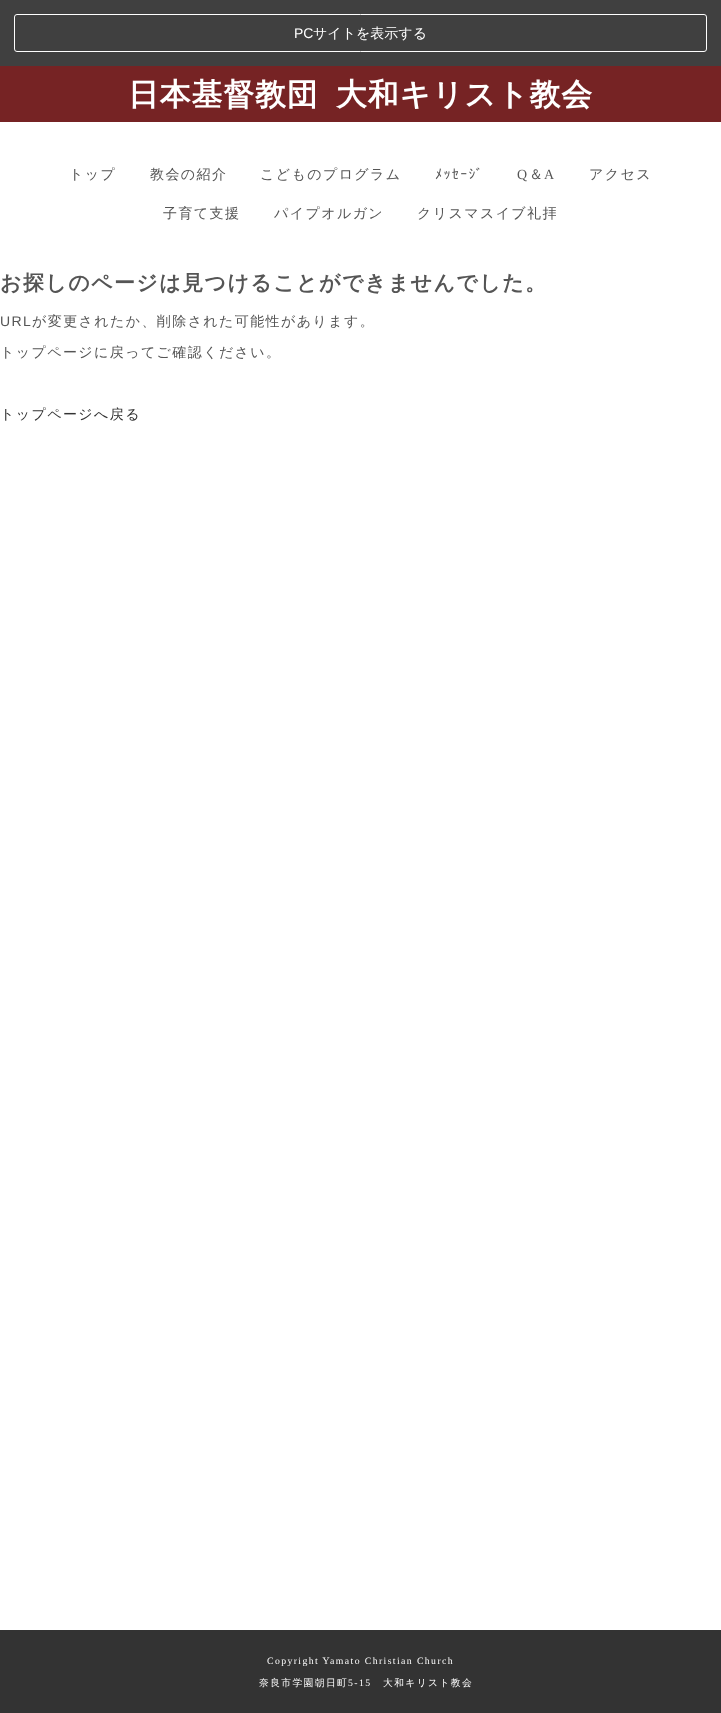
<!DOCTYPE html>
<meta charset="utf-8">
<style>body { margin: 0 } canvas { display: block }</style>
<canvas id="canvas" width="721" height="1713"></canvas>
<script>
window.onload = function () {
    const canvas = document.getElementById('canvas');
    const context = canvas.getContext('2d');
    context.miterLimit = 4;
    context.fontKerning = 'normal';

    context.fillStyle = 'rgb(255, 255, 255)';
    context.fillRect(0, 0, 721, 1713);
    context.fillStyle = 'rgb(64, 64, 64)';
    context.fillRect(0, 0, 721, 66);
    context.beginPath();
    context.roundRect(14.5, 14.5, 692, 37, 2.5);
    context.strokeStyle = 'rgb(255, 255, 255)';
    context.stroke();
    context.fillStyle = 'rgb(118, 35, 36)';
    context.fillRect(0, 66, 721, 56);
    context.fillStyle = 'rgb(51, 51, 51)';
    context.fillRect(0, 1630, 721, 83);
    context.font = '14px Liberation Sans';
    context.fillStyle = 'rgb(255, 255, 255)';
    context.fillText('PC', 294, 38);
    context.font = '500 14px WenQuanYi Zen Hei';
    context.fillText('サイトを表示する', 313, 38);
    context.letterSpacing = '1px';
    context.font = 'bold 30.75px WenQuanYi Zen Hei';
    context.fillText('日本基督教団', 128, 105);
    context.fillText('大和キリスト教会', 336, 105);
    context.letterSpacing = '1.4px';
    context.font = '500 14px WenQuanYi Zen Hei';
    context.fillStyle = 'rgb(85, 85, 85)';
    context.fillText('トップ', 69, 179);
    context.fillText('教会の紹介', 150, 179);
    context.fillText('こどものプログラム', 260, 179);
    context.font = '14px IPAPGothic';
    context.fillText('ﾒｯｾｰｼﾞ', 435, 179);
    context.font = '14px Liberation Serif';
    context.fillText('Q', 517, 179);
    context.font = '500 14px WenQuanYi Zen Hei';
    context.fillText('＆', 529, 179);
    context.font = '14px Liberation Serif';
    context.fillText('A', 544, 179);
    context.font = '500 14px WenQuanYi Zen Hei';
    context.fillText('アクセス', 589, 179);
    context.fillText('子育て支援', 163, 218);
    context.fillText('パイプオルガン', 274, 218);
    context.fillText('クリスマスイブ礼拝', 417, 218);
    context.font = 'bold 21px WenQuanYi Zen Hei';
    context.fillText('お探しのページは見つけることができませんでした。', 0, 290);
    context.font = '14px Liberation Sans';
    context.fillText('URL', 0, 326);
    context.font = '500 14px WenQuanYi Zen Hei';
    context.fillText('が変更されたか、削除された可能性があります。', 32, 326);
    context.fillText('トップページに戻ってご確認ください。', 0, 357);
    context.fillStyle = 'rgb(51, 51, 51)';
    context.fillText('トップページへ戻る', 0, 419);
    context.font = '9.75px Liberation Serif';
    context.fillStyle = 'rgb(255, 255, 255)';
    context.fillText('Copyright Yamato Christian Church', 267, 1664);
    context.font = '500 9.75px WenQuanYi Zen Hei';
    context.fillText('奈良市学園朝日町', 259, 1686);
    context.font = '9.75px Liberation Serif';
    context.fillText('5-15', 348, 1686);
    context.font = '500 9.75px WenQuanYi Zen Hei';
    context.fillText('大和キリスト教会', 383, 1686);
};
</script>
